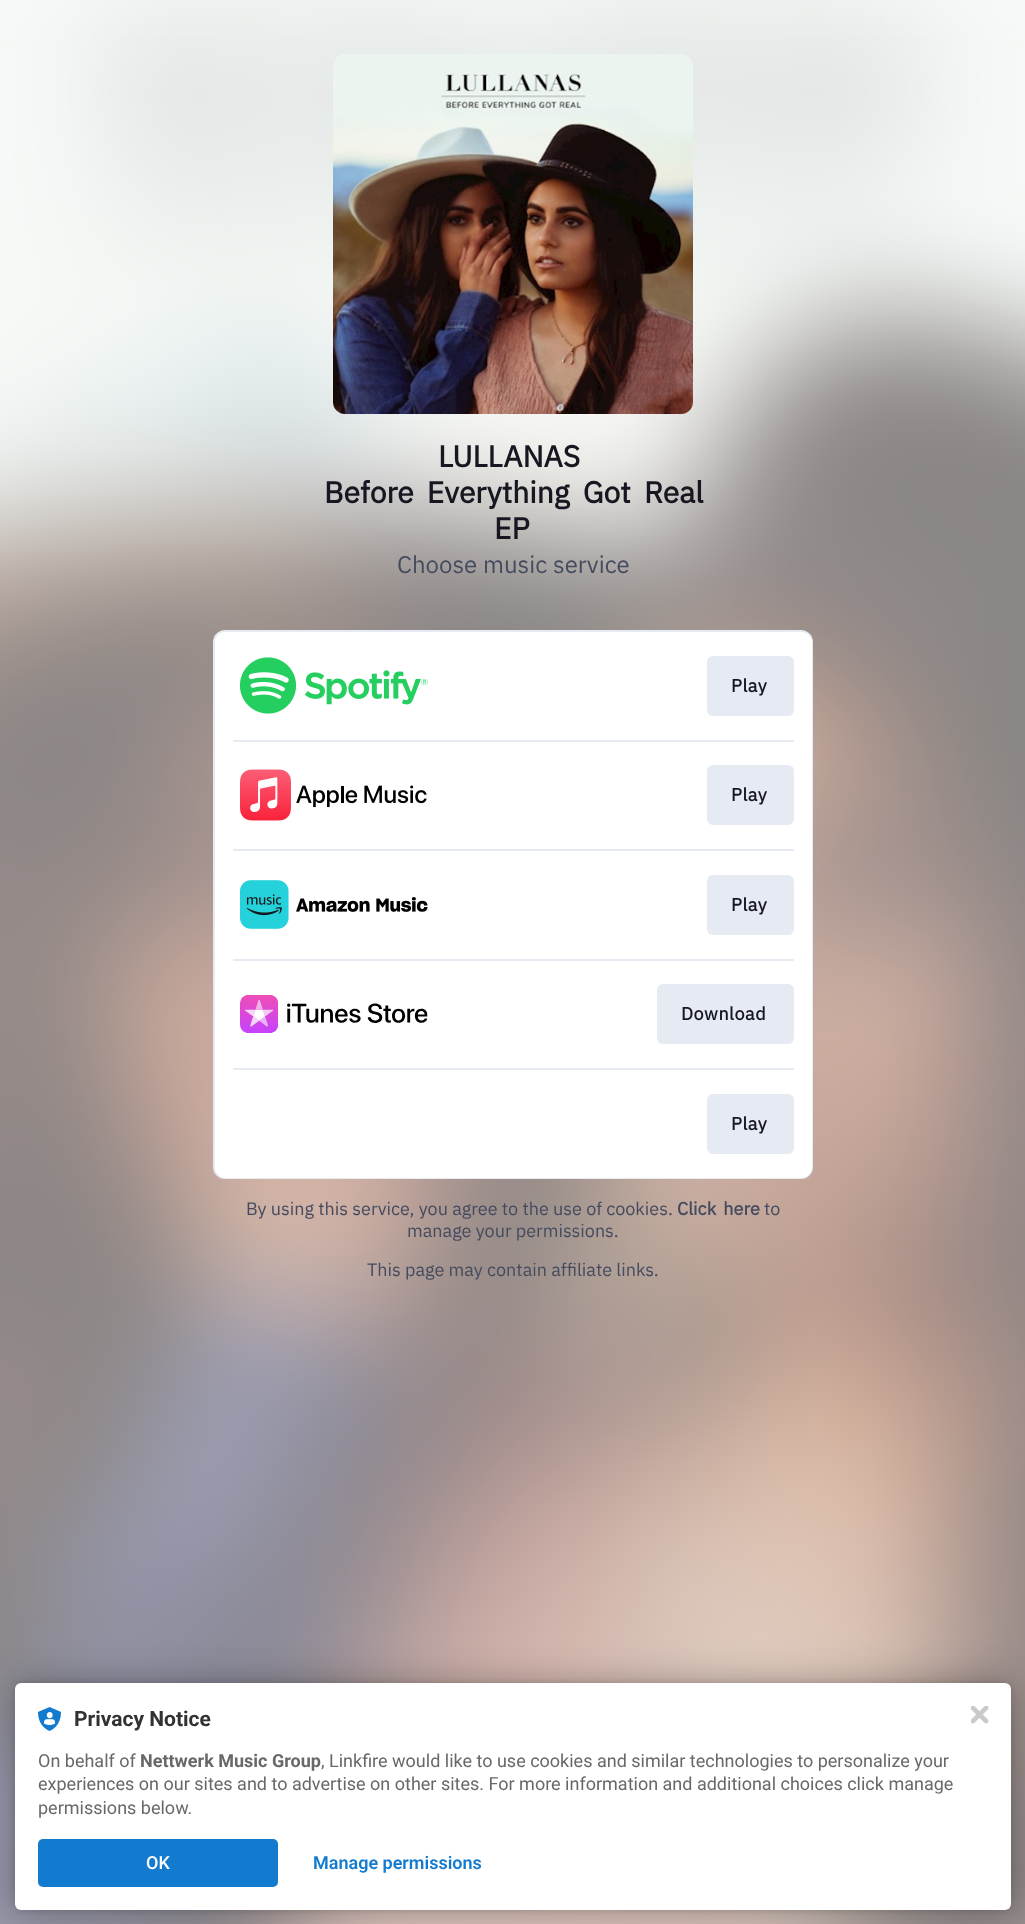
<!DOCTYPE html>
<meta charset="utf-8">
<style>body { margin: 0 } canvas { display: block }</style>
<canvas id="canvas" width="1025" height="1924"></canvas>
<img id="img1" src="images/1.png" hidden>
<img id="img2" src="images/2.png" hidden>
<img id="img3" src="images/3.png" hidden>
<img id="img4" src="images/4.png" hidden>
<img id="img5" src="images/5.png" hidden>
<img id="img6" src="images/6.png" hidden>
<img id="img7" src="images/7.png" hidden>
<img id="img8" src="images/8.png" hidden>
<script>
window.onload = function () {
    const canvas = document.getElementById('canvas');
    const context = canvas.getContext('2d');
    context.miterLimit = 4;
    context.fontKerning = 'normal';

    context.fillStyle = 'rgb(255, 255, 255)';
    context.fillRect(0, 0, 1025, 1924);
    context.drawImage(document.getElementById('img1'), 0, 0, 1025, 1924);
    context.drawImage(document.getElementById('img2'), 333, 54, 360, 360);
    context.beginPath();
    context.roundRect(214, 631, 598, 547, 11);
    context.fill();
    context.strokeStyle = 'rgb(230, 234, 242)';
    context.lineWidth = 2;
    context.stroke();
    context.beginPath();
    context.roundRect(215, 632, 597, 546, 11);
    context.fill();
    context.drawImage(document.getElementById('img3'), 240, 657, 188, 57);
    context.fillStyle = 'rgb(230, 234, 242)';
    context.beginPath();
    context.roundRect(707, 656, 87, 60, 6);
    context.fill();
    context.fillRect(233, 740, 561, 2);
    context.drawImage(document.getElementById('img4'), 240, 769, 187, 52);
    context.beginPath();
    context.roundRect(707, 765, 87, 60, 6);
    context.fill();
    context.fillRect(233, 849, 561, 2);
    context.drawImage(document.getElementById('img5'), 240, 880, 188, 49);
    context.beginPath();
    context.roundRect(707, 875, 87, 60, 6);
    context.fill();
    context.fillRect(233, 959, 561, 2);
    context.drawImage(document.getElementById('img6'), 240, 995, 188, 38);
    context.beginPath();
    context.roundRect(657, 984, 137, 60, 6);
    context.fill();
    context.fillRect(233, 1068, 561, 2);
    context.beginPath();
    context.roundRect(707, 1094, 87, 60, 6);
    context.fill();
    context.fillStyle = 'rgba(0, 0, 0, 0.12)';
    context.filter = 'blur(3px)';
    context.beginPath();
    context.roundRect(15, 1683, 996, 227, 6);
    context.fill();
    context.filter = 'none';
    context.fillStyle = 'rgba(0, 0, 0, 0.3)';
    context.filter = 'blur(18px)';
    context.beginPath();
    context.roundRect(15, 1683, 996, 227, 6);
    context.fill();
    context.filter = 'none';
    context.fillStyle = 'rgb(255, 255, 255)';
    context.beginPath();
    context.roundRect(15, 1683, 996, 227, 6);
    context.fill();
    context.drawImage(document.getElementById('img7'), 38, 1707, 23, 24);
    context.fillStyle = 'rgb(19, 123, 207)';
    context.beginPath();
    context.roundRect(38, 1839, 240, 48, 5);
    context.fill();
    context.drawImage(document.getElementById('img8'), 971, 1706, 18, 18);
    context.font = 'bold 30px IBM Plex Sans';
    context.fillStyle = 'rgb(24, 23, 33)';
    context.fillText('LULLANAS', 438, 467);
    context.wordSpacing = '6px';
    context.fillText('Before Everything Got Real', 324, 503);
    context.wordSpacing = '0px';
    context.fillText('EP', 494, 539);
    context.font = '24px IBM Plex Sans';
    context.fillStyle = 'rgb(69, 75, 95)';
    context.fillText('Choose music service', 397, 573);
    context.letterSpacing = '0.5px';
    context.font = 'bold 18px IBM Plex Sans';
    context.fillStyle = 'rgb(24, 23, 33)';
    context.fillText('Play', 731, 692);
    context.fillText('Play', 731, 801);
    context.fillText('Play', 731, 911);
    context.fillText('Download', 681, 1020);
    context.fillText('Play', 731, 1130);
    context.letterSpacing = '0px';
    context.font = '18px IBM Plex Sans';
    context.fillStyle = 'rgb(69, 75, 95)';
    context.fillText('By using this service, you agree to the use of cookies.', 246, 1215);
    context.wordSpacing = '3px';
    context.font = 'bold 18px IBM Plex Sans';
    context.fillText('Click here', 677, 1215);
    context.wordSpacing = '0px';
    context.font = '18px IBM Plex Sans';
    context.fillText('to', 764, 1215);
    context.fillText('manage your permissions.', 407, 1237);
    context.fillText('This page may contain affiliate links.', 367, 1276);
    context.font = 'bold 21px Roboto';
    context.fillStyle = 'rgb(50, 50, 50)';
    context.fillText('Privacy Notice', 74, 1726);
    context.font = '18px Roboto';
    context.fillStyle = 'rgb(104, 104, 104)';
    context.fillText('On behalf of', 38, 1767);
    context.font = 'bold 18px Roboto';
    context.fillText('Nettwerk Music Group', 140, 1767);
    context.font = '18px Roboto';
    context.fillText(', Linkfire would like to use cookies and similar technologies to personalize your', 321, 1767);
    context.fillText('experiences on our sites and to advertise on other sites. For more information and additional choices click manage', 38, 1790);
    context.fillText('permissions below.', 38, 1814);
    context.font = '500 18px Roboto';
    context.fillStyle = 'rgb(255, 255, 255)';
    context.fillText('OK', 146, 1869);
    context.font = '600 18px Roboto';
    context.fillStyle = 'rgb(19, 123, 207)';
    context.fillText('Manage permissions', 313, 1869);
};
</script>
